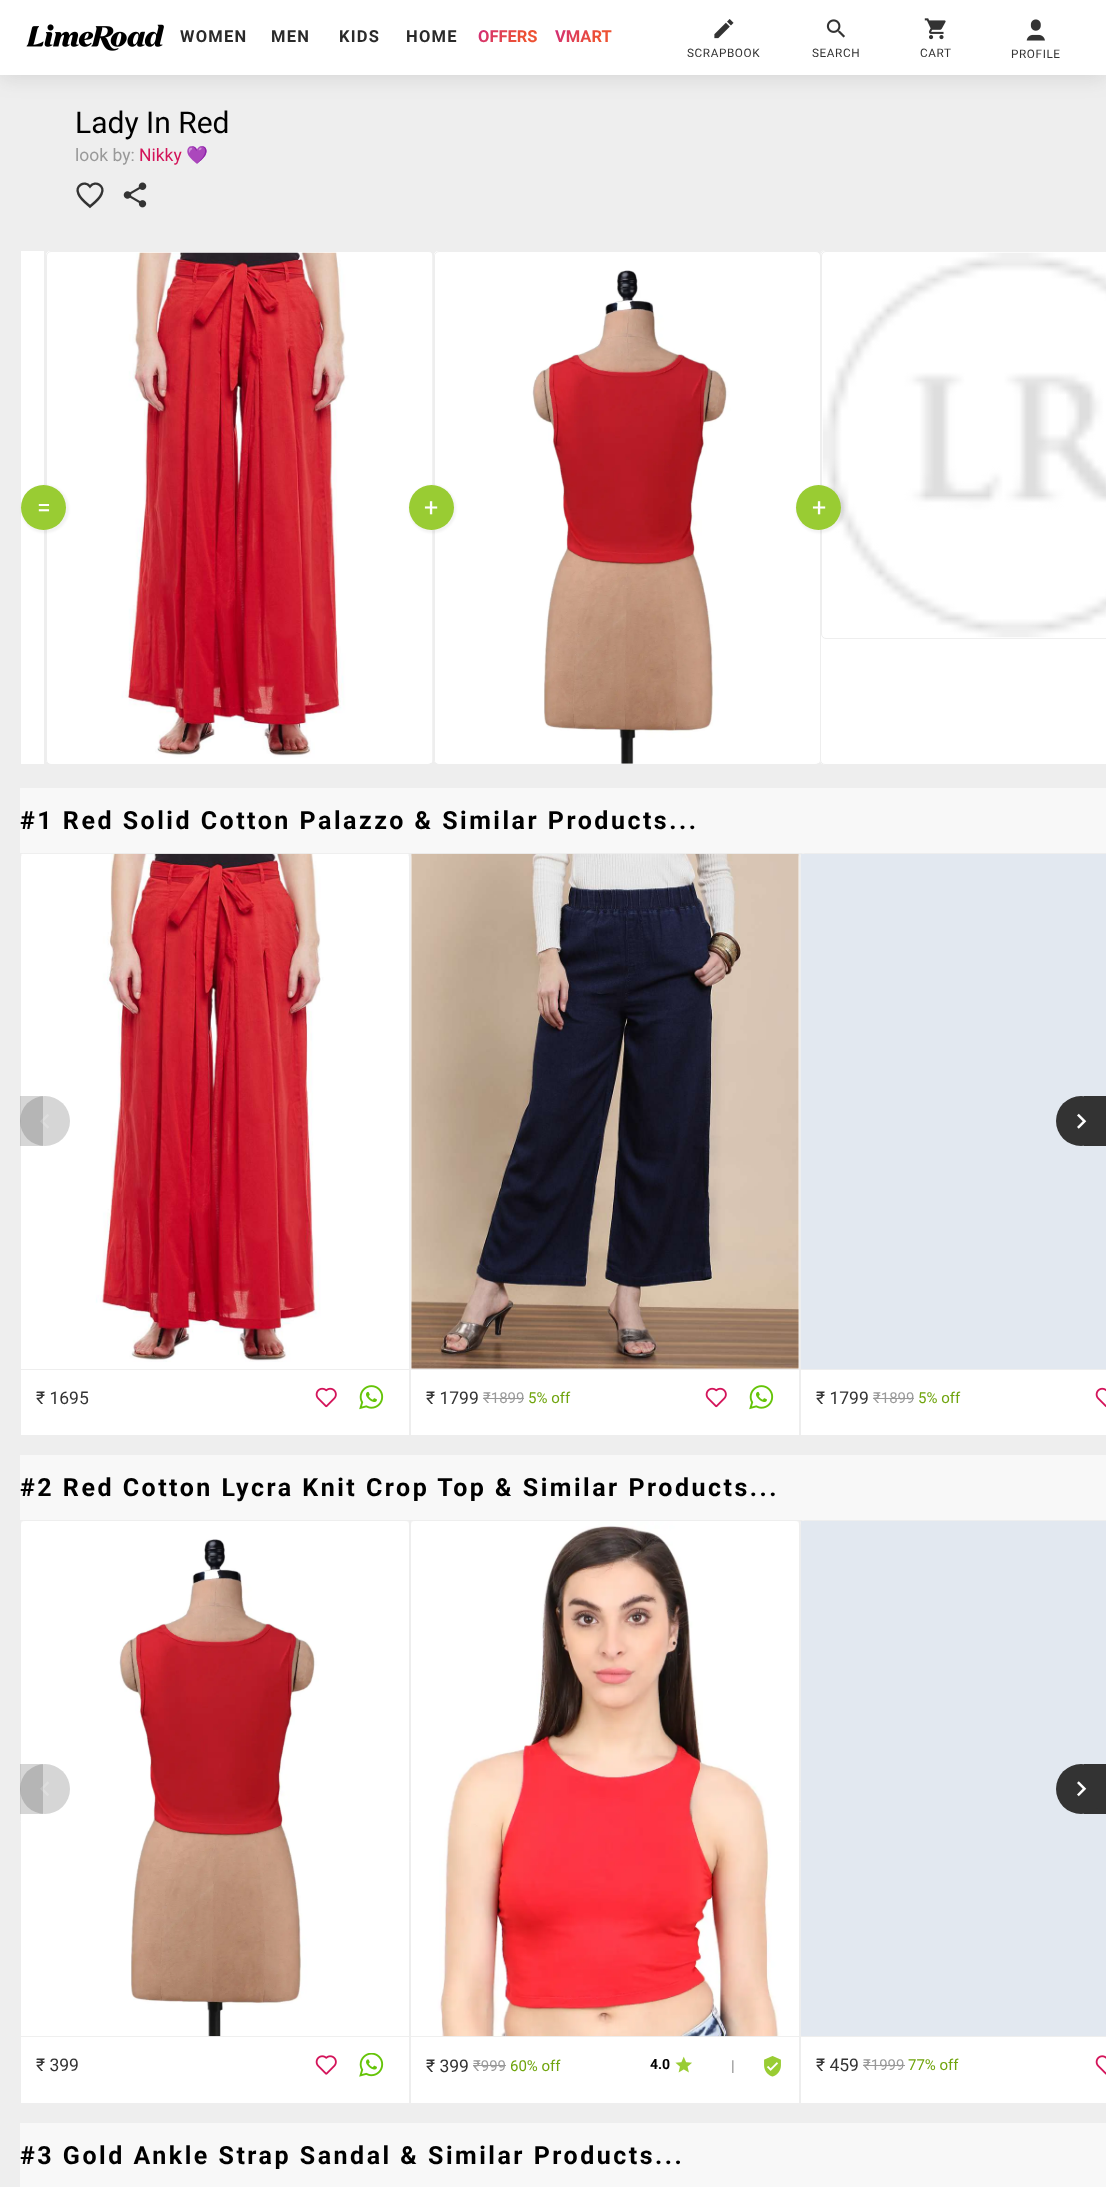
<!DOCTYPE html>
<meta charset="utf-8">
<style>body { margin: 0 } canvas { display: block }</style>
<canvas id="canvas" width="1106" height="2187"></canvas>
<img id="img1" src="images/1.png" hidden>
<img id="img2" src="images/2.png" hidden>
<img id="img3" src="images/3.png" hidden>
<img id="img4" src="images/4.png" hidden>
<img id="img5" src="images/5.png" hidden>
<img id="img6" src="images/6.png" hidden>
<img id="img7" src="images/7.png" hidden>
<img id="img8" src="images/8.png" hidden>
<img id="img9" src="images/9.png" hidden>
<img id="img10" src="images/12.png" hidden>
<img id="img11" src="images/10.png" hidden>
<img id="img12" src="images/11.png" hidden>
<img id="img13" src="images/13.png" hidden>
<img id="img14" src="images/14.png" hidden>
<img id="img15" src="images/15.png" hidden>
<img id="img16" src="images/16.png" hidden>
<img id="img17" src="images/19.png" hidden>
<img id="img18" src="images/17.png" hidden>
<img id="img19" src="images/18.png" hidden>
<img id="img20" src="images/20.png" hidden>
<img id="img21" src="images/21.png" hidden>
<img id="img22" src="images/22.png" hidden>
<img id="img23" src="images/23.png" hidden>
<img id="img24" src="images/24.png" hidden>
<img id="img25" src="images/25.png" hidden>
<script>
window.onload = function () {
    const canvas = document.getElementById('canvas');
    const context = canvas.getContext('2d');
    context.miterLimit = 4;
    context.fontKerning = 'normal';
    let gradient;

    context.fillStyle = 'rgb(238, 238, 238)';
    context.fillRect(0, 0, 1106, 2187);
    context.fillStyle = 'rgba(85, 85, 85, 0.16)';
    context.filter = 'blur(10px)';
    context.beginPath();
    context.rect(0, 3, 1106, 75);
    context.fill();
    context.filter = 'none';
    context.fillStyle = 'rgb(255, 255, 255)';
    context.fillRect(0, 0, 1106, 75);
    context.drawImage(document.getElementById('img1'), 26, 24, 138, 27);
    context.drawImage(document.getElementById('img2'), 714, 19, 20, 20);
    context.drawImage(document.getElementById('img3'), 826, 19, 19, 19);
    context.drawImage(document.getElementById('img4'), 924, 18, 22, 22);
    context.drawImage(document.getElementById('img5'), 1026, 19, 19, 22);
    context.beginPath();
    context.moveTo(90, 206.5);
    context.bezierCurveTo(86, 203, 80.5, 199, 78.5, 194);
    context.bezierCurveTo(74.5, 186, 84.5, 180, 90, 186.5);
    context.bezierCurveTo(95.5, 180, 105.5, 186, 101.5, 194);
    context.bezierCurveTo(99.5, 199, 94, 203, 90, 206.5);
    context.closePath();
    context.strokeStyle = 'rgb(51, 51, 51)';
    context.lineWidth = 2.5;
    context.stroke();
    context.drawImage(document.getElementById('img6'), 123, 182, 24, 26);
    context.fillRect(21, 251, 23, 513);
    context.beginPath();
    context.roundRect(45.5, 250.5, 387, 514, 4.5);
    context.fill();
    context.strokeStyle = 'rgb(238, 238, 238)';
    context.lineWidth = 1;
    context.stroke();
    context.beginPath();
    context.roundRect(46.5, 251.5, 387, 513, 4.5);
    context.stroke();
    context.fillStyle = 'rgba(0, 0, 0, 0.05)';
    context.filter = 'blur(1px)';
    context.beginPath();
    context.roundRect(21, 485, 48, 48, 24);
    context.fill();
    context.filter = 'none';
    context.fillStyle = 'rgb(153, 204, 51)';
    context.beginPath();
    context.arc(43.5, 507.5, 22.5, 0, 2 * Math.PI);
    context.fill();
    context.drawImage(document.getElementById('img7'), 121, 252, 312, 511);
    context.fillStyle = 'rgb(255, 255, 255)';
    context.beginPath();
    context.roundRect(433.5, 250.5, 386, 514, 4.5);
    context.fill();
    context.stroke();
    context.beginPath();
    context.roundRect(434.5, 251.5, 386, 513, 4.5);
    context.stroke();
    context.drawImage(document.getElementById('img8'), 435, 253, 385, 511);
    context.fillStyle = 'rgba(0, 0, 0, 0.05)';
    context.filter = 'blur(1px)';
    context.beginPath();
    context.roundRect(409, 485, 47, 48, 23.5);
    context.fill();
    context.filter = 'none';
    context.fillStyle = 'rgb(153, 204, 51)';
    context.beginPath();
    context.arc(431.5, 507.5, 22.5, 0, 2 * Math.PI);
    context.fill();
    context.fillStyle = 'rgb(255, 255, 255)';
    context.beginPath();
    context.roundRect(820, 250, 286, 515, [5, 0, 0, 5]);
    context.fill();
    context.beginPath();
    context.roundRect(820.5, 250.5, 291, 514, 4.5);
    context.stroke();
    context.beginPath();
    context.roundRect(821.5, 251.5, 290, 387, 4.5);
    context.stroke();
    context.drawImage(document.getElementById('img9'), 822, 252, 284, 386);
    context.fillStyle = 'rgba(0, 0, 0, 0.05)';
    context.filter = 'blur(1px)';
    context.beginPath();
    context.roundRect(796, 485, 48, 48, 24);
    context.fill();
    context.filter = 'none';
    context.fillStyle = 'rgb(153, 204, 51)';
    context.beginPath();
    context.arc(818.5, 507.5, 22.5, 0, 2 * Math.PI);
    context.fill();
    context.fillStyle = 'rgb(248, 248, 248)';
    context.fillRect(20, 788, 1086, 65);
    context.fillStyle = 'rgb(255, 255, 255)';
    context.beginPath();
    context.roundRect(20.5, 853.5, 389, 601, 4.5);
    context.fill();
    context.stroke();
    context.drawImage(document.getElementById('img10'), 21, 853, 388, 509);
    context.fillStyle = 'rgba(51, 51, 51, 0.2)';
    context.fillRect(20, 1096, 23, 50);
    context.beginPath();
    context.arc(45, 1121, 25, 0, 2 * Math.PI);
    context.fill();
    context.drawImage(document.getElementById('img11'), 40, 1114, 9, 15);
    context.fillStyle = 'rgb(255, 255, 255)';
    context.beginPath();
    context.roundRect(800, 853, 306, 602, [5, 0, 0, 5]);
    context.fill();
    context.beginPath();
    context.roundRect(800.5, 853.5, 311, 601, 4.5);
    context.stroke();
    context.fillStyle = 'rgb(226, 232, 240)';
    context.fillRect(801, 854, 305, 515);
    context.fillStyle = 'rgb(51, 51, 51)';
    context.fillRect(1084, 1096, 22, 50);
    context.beginPath();
    context.arc(1081, 1121, 25, 0, 2 * Math.PI);
    context.fill();
    context.drawImage(document.getElementById('img12'), 1077, 1113, 10, 16);
    context.fillStyle = 'rgb(238, 238, 238)';
    context.fillRect(21, 1369, 388, 1);
    context.drawImage(document.getElementById('img13'), 315, 1387, 22, 21);
    context.drawImage(document.getElementById('img14'), 359, 1385, 25, 25);
    context.fillStyle = 'rgb(255, 255, 255)';
    context.beginPath();
    context.roundRect(410.5, 853.5, 389, 601, 4.5);
    context.fill();
    context.stroke();
    context.drawImage(document.getElementById('img15'), 411, 853, 388, 516);
    context.fillStyle = 'rgb(238, 238, 238)';
    context.fillRect(411, 1369, 388, 1);
    context.fillStyle = 'rgb(153, 153, 153)';
    context.fillRect(483, 1398, 41, 1);
    context.drawImage(document.getElementById('img13'), 705, 1387, 22, 21);
    context.drawImage(document.getElementById('img14'), 749, 1385, 25, 25);
    context.fillStyle = 'rgb(238, 238, 238)';
    context.fillRect(801, 1369, 305, 1);
    context.fillStyle = 'rgb(153, 153, 153)';
    context.fillRect(873, 1398, 41, 1);
    context.drawImage(document.getElementById('img16'), 1095, 1387, 11, 21);
    context.fillStyle = 'rgb(238, 238, 238)';
    context.fillRect(20, 1435, 1086, 20);
    context.fillStyle = 'rgb(248, 248, 248)';
    context.fillRect(20, 1455, 1086, 65);
    context.fillStyle = 'rgb(255, 255, 255)';
    context.beginPath();
    context.roundRect(20.5, 1520.5, 389, 602, 4.5);
    context.fill();
    context.stroke();
    context.fillStyle = 'rgb(238, 238, 238)';
    context.fillRect(21, 2036, 388, 1);
    context.drawImage(document.getElementById('img17'), 21, 1521, 388, 516);
    context.fillStyle = 'rgba(51, 51, 51, 0.2)';
    context.fillRect(20, 1764, 23, 50);
    context.beginPath();
    context.arc(45, 1789, 25, 0, 2 * Math.PI);
    context.fill();
    context.drawImage(document.getElementById('img18'), 40, 1781, 9, 15);
    context.fillStyle = 'rgb(255, 255, 255)';
    context.beginPath();
    context.roundRect(800, 1520, 306, 603, [5, 0, 0, 5]);
    context.fill();
    context.beginPath();
    context.roundRect(800.5, 1520.5, 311, 602, 4.5);
    context.stroke();
    context.fillStyle = 'rgb(226, 232, 240)';
    context.fillRect(801, 1521, 305, 515);
    context.fillStyle = 'rgb(51, 51, 51)';
    context.fillRect(1084, 1764, 22, 50);
    context.beginPath();
    context.arc(1081, 1789, 25, 0, 2 * Math.PI);
    context.fill();
    context.drawImage(document.getElementById('img19'), 1077, 1781, 10, 16);
    context.drawImage(document.getElementById('img20'), 315, 2055, 22, 20);
    context.drawImage(document.getElementById('img21'), 359, 2053, 25, 24);
    context.fillStyle = 'rgb(255, 255, 255)';
    context.beginPath();
    context.roundRect(410.5, 1520.5, 389, 602, 4.5);
    context.fill();
    context.stroke();
    context.fillStyle = 'rgb(238, 238, 238)';
    context.fillRect(411, 2036, 388, 1);
    context.drawImage(document.getElementById('img22'), 411, 1521, 388, 516);
    context.fillStyle = 'rgb(153, 153, 153)';
    context.fillRect(473, 2065, 33, 1);
    context.drawImage(document.getElementById('img23'), 675, 2056, 17, 17);
    context.drawImage(document.getElementById('img24'), 764, 2056, 17, 21);
    context.fillStyle = 'rgb(238, 238, 238)';
    context.fillRect(801, 2036, 305, 1);
    context.fillStyle = 'rgb(153, 153, 153)';
    context.fillRect(863, 2065, 42, 1);
    context.drawImage(document.getElementById('img25'), 1095, 2055, 11, 20);
    context.fillStyle = 'rgb(238, 238, 238)';
    context.fillRect(20, 2103, 1086, 20);
    context.fillStyle = 'rgb(248, 248, 248)';
    context.fillRect(20, 2123, 1086, 64);
    context.letterSpacing = '1.25px';
    context.font = 'bold 16.5px Roboto';
    context.fillStyle = 'rgb(42, 42, 42)';
    context.fillText('WOMEN', 180, 42);
    context.fillText('MEN', 271, 42);
    context.fillText('KIDS', 339, 42);
    context.fillText('HOME', 406, 42);
    context.letterSpacing = '0px';
    gradient = context.createLinearGradient(480, 19, 532, 53);
    gradient.addColorStop(0, 'rgb(206, 41, 126)');
    gradient.addColorStop(0.73, 'rgb(237, 81, 51)');
    context.fillStyle = gradient;
    context.fillText('OFFERS', 478, 42);
    gradient = context.createLinearGradient(556, 20, 607, 52);
    gradient.addColorStop(0, 'rgb(206, 41, 126)');
    gradient.addColorStop(0.73, 'rgb(237, 81, 51)');
    context.fillStyle = gradient;
    context.fillText('VMART', 555, 42);
    context.letterSpacing = '0.6px';
    context.font = '11.75px Roboto';
    context.fillStyle = 'rgb(51, 51, 51)';
    context.fillText('SCRAPBOOK', 687, 57);
    context.fillText('SEARCH', 812, 57);
    context.fillText('CART', 920, 57);
    context.fillText('PROFILE', 1011, 58);
    context.letterSpacing = '0px';
    context.font = '30px Roboto';
    context.fillStyle = 'rgb(0, 0, 0)';
    context.fillText('Lady In Red', 75, 133);
    context.font = '17.5px Roboto';
    context.fillStyle = 'rgb(153, 153, 153)';
    context.fillText('look by:', 75, 161);
    context.fillStyle = 'rgb(211, 20, 90)';
    context.fillText('Nikky', 139, 161);
    context.font = '17.5px Noto Color Emoji';
    context.fillText('💜', 186, 161);
    context.font = '25px Roboto';
    context.fillStyle = 'rgb(255, 255, 255)';
    context.fillText('=', 37, 516);
    context.fillText('+', 424, 516);
    context.fillText('+', 812, 516);
    context.letterSpacing = '2.5px';
    context.font = 'bold 25px Roboto';
    context.fillStyle = 'rgb(0, 0, 0)';
    context.fillText('#1 Red Solid Cotton Palazzo & Similar Products...', 20, 829);
    context.letterSpacing = '0px';
    context.font = '17.5px Roboto';
    context.fillStyle = 'rgb(51, 51, 51)';
    context.fillText('₹ 1695', 36, 1404);
    context.fillText('₹ 1799', 426, 1404);
    context.font = '15px Roboto';
    context.fillStyle = 'rgb(153, 153, 153)';
    context.fillText('₹1899', 483, 1403);
    context.fillStyle = 'rgb(111, 164, 12)';
    context.fillText('5% off', 528, 1403);
    context.font = '17.5px Roboto';
    context.fillStyle = 'rgb(51, 51, 51)';
    context.fillText('₹ 1799', 816, 1404);
    context.font = '15px Roboto';
    context.fillStyle = 'rgb(153, 153, 153)';
    context.fillText('₹1899', 873, 1403);
    context.fillStyle = 'rgb(111, 164, 12)';
    context.fillText('5% off', 918, 1403);
    context.letterSpacing = '2.5px';
    context.font = 'bold 25px Roboto';
    context.fillStyle = 'rgb(0, 0, 0)';
    context.fillText('#2 Red Cotton Lycra Knit Crop Top & Similar Products...', 20, 1496);
    context.letterSpacing = '0px';
    context.font = '17.5px Roboto';
    context.fillStyle = 'rgb(51, 51, 51)';
    context.fillText('₹ 399', 36, 2071);
    context.fillText('₹ 399', 426, 2072);
    context.font = '15px Roboto';
    context.fillStyle = 'rgb(153, 153, 153)';
    context.fillText('₹999', 473, 2071);
    context.fillStyle = 'rgb(111, 164, 12)';
    context.fillText('60% off', 510, 2071);
    context.font = 'bold 14px Roboto';
    context.fillStyle = 'rgb(0, 0, 0)';
    context.fillText('4.0', 650, 2069);
    context.font = '15px Roboto';
    context.fillStyle = 'rgb(136, 136, 136)';
    context.fillText('|', 731, 2071);
    context.font = '17.5px Roboto';
    context.fillStyle = 'rgb(51, 51, 51)';
    context.fillText('₹ 459', 816, 2071);
    context.font = '15px Roboto';
    context.fillStyle = 'rgb(153, 153, 153)';
    context.fillText('₹1999', 863, 2070);
    context.fillStyle = 'rgb(111, 164, 12)';
    context.fillText('77% off', 908, 2070);
    context.letterSpacing = '2.5px';
    context.font = 'bold 25px Roboto';
    context.fillStyle = 'rgb(0, 0, 0)';
    context.fillText('#3 Gold Ankle Strap Sandal & Similar Products...', 20, 2164);
};
</script>
